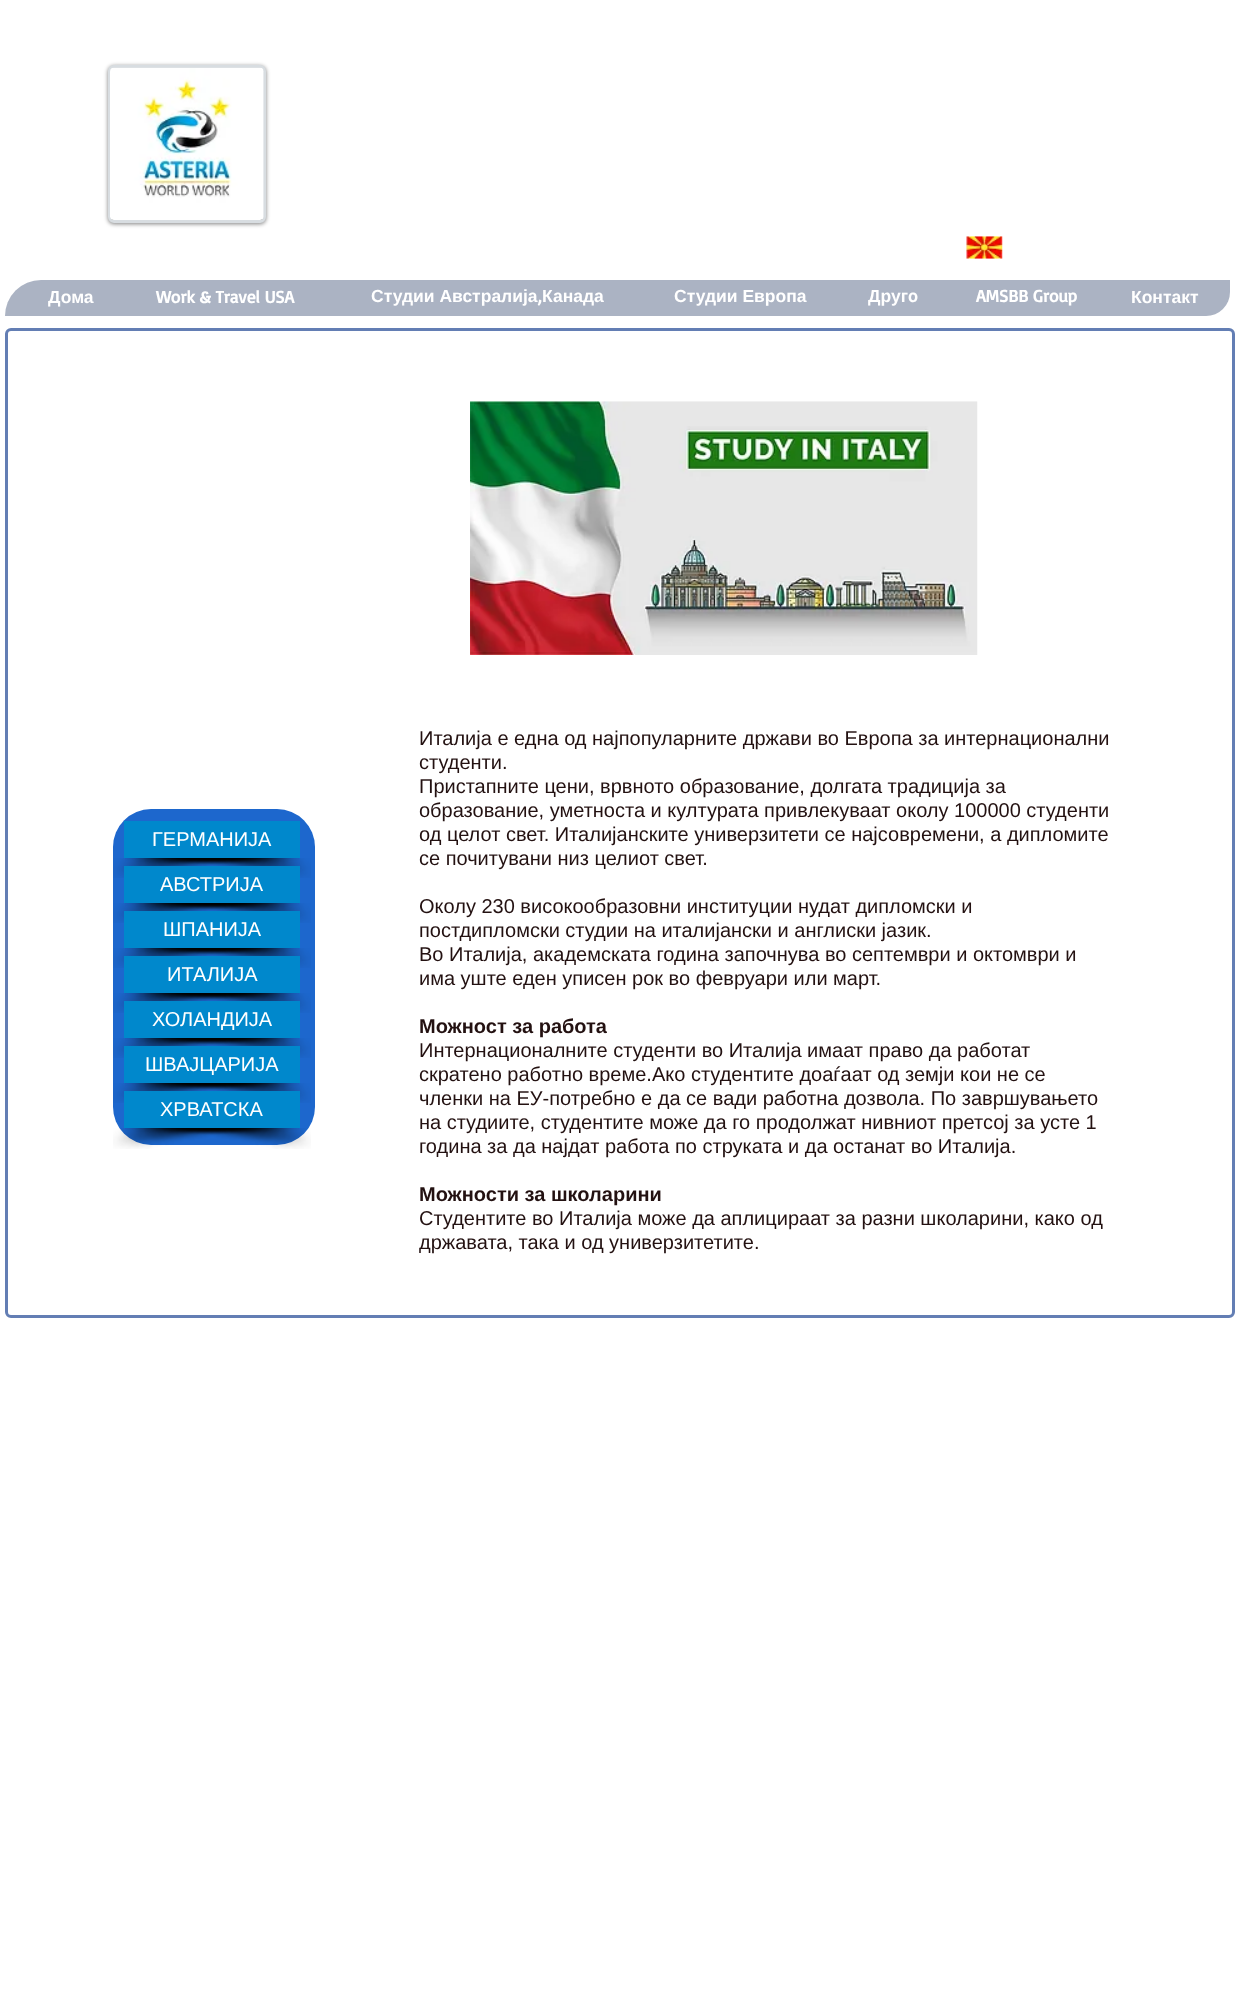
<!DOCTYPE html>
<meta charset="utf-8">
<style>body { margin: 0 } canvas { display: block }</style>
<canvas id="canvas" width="1235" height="2009"></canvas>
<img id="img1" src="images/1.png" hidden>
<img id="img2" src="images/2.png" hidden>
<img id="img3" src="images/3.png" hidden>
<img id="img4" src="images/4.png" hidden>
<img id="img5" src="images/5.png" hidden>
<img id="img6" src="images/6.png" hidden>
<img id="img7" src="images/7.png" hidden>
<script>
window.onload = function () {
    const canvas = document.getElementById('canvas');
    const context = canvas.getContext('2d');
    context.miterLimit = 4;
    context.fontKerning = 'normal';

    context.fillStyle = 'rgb(255, 255, 255)';
    context.fillRect(0, 0, 1235, 2009);
    context.fillStyle = 'rgba(0, 0, 0, 0.5)';
    context.filter = 'blur(2px)';
    context.beginPath();
    context.roundRect(108, 66, 158, 158, 6);
    context.fill();
    context.filter = 'none';
    context.beginPath();
    context.roundRect(109.5, 66.5, 155, 155, 4.5);
    context.strokeStyle = 'rgb(216, 221, 225)';
    context.lineWidth = 3;
    context.stroke();
    context.drawImage(document.getElementById('img1'), 110, 67, 154, 153);
    context.drawImage(document.getElementById('img2'), 966, 236, 37, 23);
    context.fillStyle = 'rgb(171, 179, 195)';
    context.beginPath();
    context.roundRect(5, 280, 1225, 36, [36, 0, 24, 0]);
    context.fill();
    context.beginPath();
    context.roundRect(6.5, 329.5, 1227, 987, 4.5);
    context.strokeStyle = 'rgb(99, 126, 180)';
    context.stroke();
    context.drawImage(document.getElementById('img3'), 470, 401, 508, 254);
    context.fillStyle = 'rgb(29, 103, 205)';
    context.beginPath();
    context.roundRect(113, 809, 202, 336, 38);
    context.fill();
    context.fillStyle = 'rgb(0, 136, 204)';
    context.fillRect(124, 821, 176, 37);
    context.drawImage(document.getElementById('img4'), 113, 858, 186, 20);
    context.drawImage(document.getElementById('img5'), 125, 858, 186, 20);
    context.fillRect(124, 866, 176, 37);
    context.drawImage(document.getElementById('img4'), 113, 903, 186, 20);
    context.drawImage(document.getElementById('img5'), 125, 903, 186, 20);
    context.fillRect(124, 911, 176, 37);
    context.drawImage(document.getElementById('img4'), 113, 948, 186, 20);
    context.drawImage(document.getElementById('img5'), 125, 948, 186, 20);
    context.fillRect(124, 956, 176, 37);
    context.drawImage(document.getElementById('img4'), 113, 993, 186, 20);
    context.drawImage(document.getElementById('img5'), 125, 993, 186, 20);
    context.fillRect(124, 1001, 176, 37);
    context.drawImage(document.getElementById('img4'), 113, 1038, 186, 20);
    context.drawImage(document.getElementById('img5'), 125, 1038, 186, 20);
    context.fillRect(124, 1046, 176, 37);
    context.drawImage(document.getElementById('img4'), 113, 1083, 186, 20);
    context.drawImage(document.getElementById('img5'), 125, 1083, 186, 20);
    context.fillRect(124, 1091, 176, 37);
    context.drawImage(document.getElementById('img6'), 113, 1128, 186, 21);
    context.drawImage(document.getElementById('img7'), 125, 1128, 186, 21);
    context.font = 'bold 17.5px Liberation Sans';
    context.fillStyle = 'rgb(255, 255, 255)';
    context.fillText('Дома', 48, 303);
    context.font = 'bold 17.5px Basic';
    context.fillText('Work & Travel USA', 156, 303);
    context.font = 'bold 17.5px Liberation Sans';
    context.fillText('Студии Австралија', 371, 302);
    context.fillText('Канада', 542, 302);
    context.font = 'bold 17.5px Basic';
    context.fillText(',', 538, 302);
    context.font = 'bold 17.5px Liberation Sans';
    context.fillText('Студии Европа', 674, 302);
    context.fillText('Друг', 868, 302);
    context.font = 'bold 17.5px Basic';
    context.fillText('o', 908, 302);
    context.fillText('AMSBB Group', 976, 302);
    context.font = 'bold 17.5px Liberation Sans';
    context.fillText('Контакт', 1131, 303);
    context.font = '20px Liberation Sans';
    context.fillText('ГЕРМАНИЈА', 152, 846);
    context.fillText('АВСТРИЈА', 160, 891);
    context.fillText('ШПАНИЈА', 163, 936);
    context.fillText('ИТАЛИЈА', 167, 981);
    context.fillText('ХОЛАНДИЈА', 152, 1026);
    context.fillText('ШВАЈЦАРИЈА', 145, 1071);
    context.fillText('ХРВАТСКА', 160, 1116);
    context.fillStyle = 'rgb(35, 17, 17)';
    context.fillText('Италија е една од најпопуларните држави во Европа за интернационални', 419, 745);
    context.fillText('студенти.', 419, 769);
    context.fillText('Пристапните цени, врвното образование, долгата традиција за', 419, 793);
    context.fillText('образование, уметноста и културата привлекуваат околу 100000 студенти', 419, 817);
    context.fillText('од целот свет. Италијанските универзитети се најсовремени, а дипломите', 419, 841);
    context.fillText('се почитувани низ целиот свет.', 419, 865);
    context.fillText('Околу 230 високообразовни институции нудат дипломски и', 419, 913);
    context.fillText('постдипломски студии на италијански и англиски јазик.', 419, 937);
    context.fillText('Во Италија, академската година започнува во септември и октомври и', 419, 961);
    context.fillText('има уште еден уписен рок во февруари или март.', 419, 985);
    context.font = 'bold 20px Liberation Sans';
    context.fillText('Можност за работа', 419, 1033);
    context.font = '20px Liberation Sans';
    context.fillText('Интернационалните студенти во Италија имаат право да работат', 419, 1057);
    context.fillText('скратено работно време.Ако студентите доаѓаат од земји кои не се', 419, 1081);
    context.fillText('членки на ЕУ-потребно е да се вади работна дозвола. По завршувањето', 419, 1105);
    context.fillText('на студиите, студентите може да го продолжат нивниот претсој за усте 1', 419, 1129);
    context.fillText('година за да најдат работа по струката и да останат во Италија.', 419, 1153);
    context.font = 'bold 20px Liberation Sans';
    context.fillText('Можности за школарини', 419, 1201);
    context.font = '20px Liberation Sans';
    context.fillText('Студентите во Италија може да аплицираат за разни школарини, како од', 419, 1225);
    context.fillText('државата, така и од универзитетите.', 419, 1249);
};
</script>
